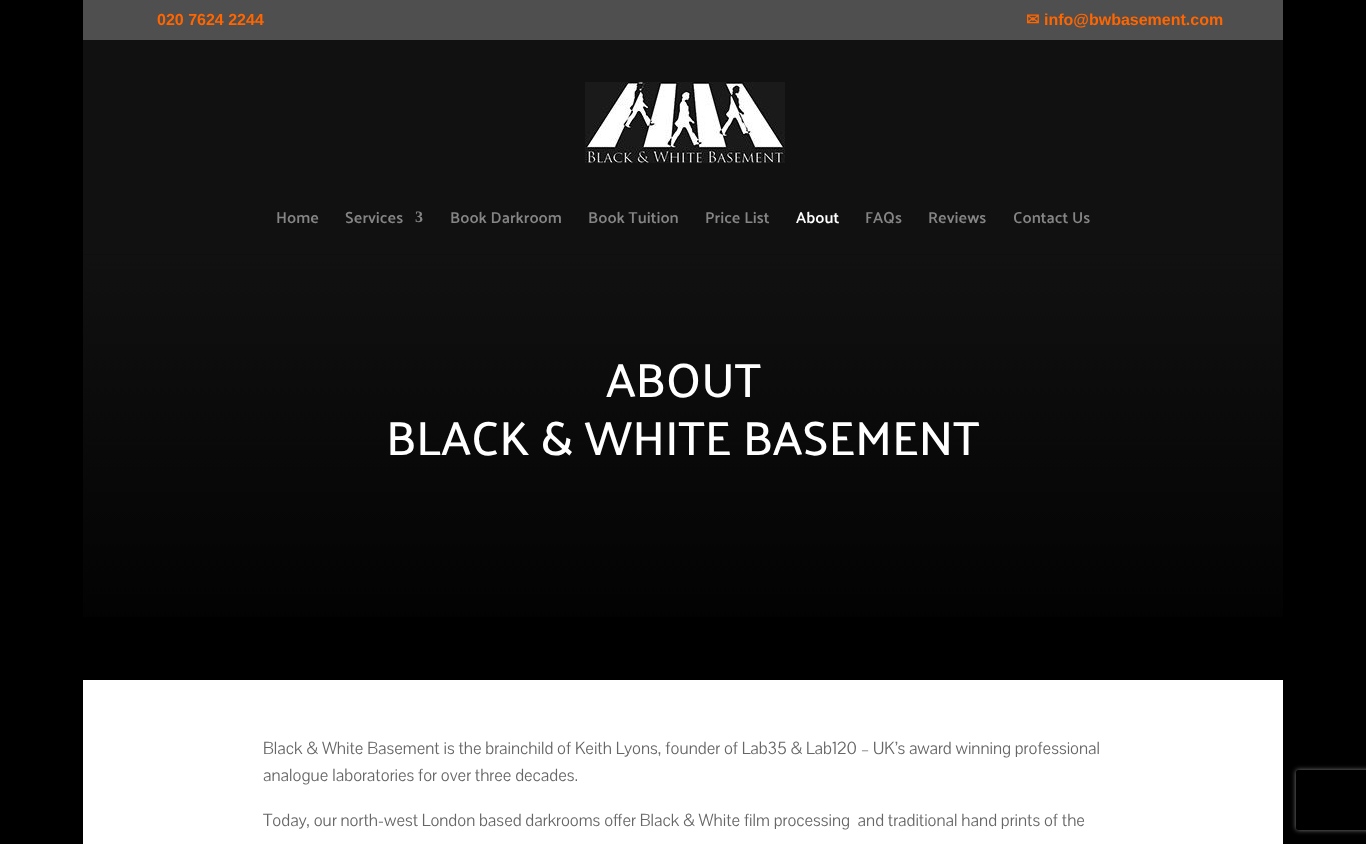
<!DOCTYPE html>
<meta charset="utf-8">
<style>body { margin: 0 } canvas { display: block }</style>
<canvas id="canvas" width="1366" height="844"></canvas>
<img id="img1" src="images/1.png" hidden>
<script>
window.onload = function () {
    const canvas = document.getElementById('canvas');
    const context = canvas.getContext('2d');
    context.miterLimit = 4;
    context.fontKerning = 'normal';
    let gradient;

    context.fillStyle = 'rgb(0, 0, 0)';
    context.fillRect(0, 0, 1366, 844);
    context.fillStyle = 'rgb(79, 79, 79)';
    context.fillRect(83, 0, 1200, 40);
    context.fillStyle = 'rgb(15, 15, 15)';
    context.fillRect(83, 254, 1200, 1);
    context.fillStyle = 'rgb(17, 17, 17)';
    context.fillRect(83, 40, 1200, 214);
    context.drawImage(document.getElementById('img1'), 585, 82, 200, 81);
    gradient = context.createLinearGradient(683, 254, 683, 680);
    gradient.addColorStop(0, 'rgb(17, 17, 17)');
    gradient.addColorStop(1, 'rgb(0, 0, 0)');
    context.fillStyle = gradient;
    context.fillRect(83, 255, 1200, 362);
    context.fillStyle = 'rgb(255, 255, 255)';
    context.fillRect(83, 680, 1200, 164);
    context.save();
    context.beginPath();
    context.moveTo(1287, 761);
    context.lineTo(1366, 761);
    context.lineTo(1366, 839);
    context.lineTo(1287, 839);
    context.closePath();
    context.moveTo(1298, 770);
    context.lineTo(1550, 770);
    context.bezierCurveTo(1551, 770, 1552, 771, 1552, 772);
    context.lineTo(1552, 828);
    context.bezierCurveTo(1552, 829, 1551, 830, 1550, 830);
    context.lineTo(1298, 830);
    context.bezierCurveTo(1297, 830, 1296, 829, 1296, 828);
    context.lineTo(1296, 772);
    context.bezierCurveTo(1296, 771, 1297, 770, 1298, 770);
    context.closePath();
    context.clip('evenodd');
    context.fillStyle = 'rgb(128, 128, 128)';
    context.filter = 'blur(2.5px)';
    context.beginPath();
    context.roundRect(1296, 770, 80, 60, 2);
    context.fill();
    context.filter = 'none';
    context.restore();
    context.font = 'bold 16px Liberation Sans';
    context.fillStyle = 'rgb(255, 102, 0)';
    context.fillText('020 7624 2244', 157, 25);
    context.font = 'bold 16px DejaVu Sans';
    context.fillText('✉', 1026, 25);
    context.font = 'bold 16px Liberation Sans';
    context.fillText('info@bwbasement.com', 1044, 25);
    context.font = '600 16px Palanquin';
    context.fillStyle = 'rgb(133, 133, 133)';
    context.fillText('Home', 276, 223);
    context.fillText('Services', 345, 223);
    context.font = 'bold 16px Liberation Serif';
    context.fillText('3', 415, 222);
    context.font = '600 16px Palanquin';
    context.fillText('Book Darkroom', 450, 223);
    context.fillText('Book Tuition', 588, 223);
    context.fillText('Price List', 705, 223);
    context.fillStyle = 'rgb(255, 255, 255)';
    context.fillText('About', 796, 223);
    context.fillStyle = 'rgb(133, 133, 133)';
    context.fillText('FAQs', 865, 223);
    context.fillText('Reviews', 928, 223);
    context.fillText('Contact Us', 1013, 223);
    context.font = '500 48px Palanquin';
    context.fillStyle = 'rgb(255, 255, 255)';
    context.fillText('ABOUT', 606, 397);
    context.fillText('BLACK & WHITE BASEMENT', 386, 455);
    context.font = '18px Pavanam';
    context.fillStyle = 'rgb(102, 102, 102)';
    context.fillText('Black & White Basement is the brainchild of Keith Lyons, founder of Lab35 & Lab120 – UK’s award winning professional', 263, 754);
    context.fillText('analogue laboratories for over three decades.', 263, 781);
    context.fillText('Today, our north-west London based darkrooms offer Black & White film processing  and traditional hand prints of the', 263, 826);
};
</script>
